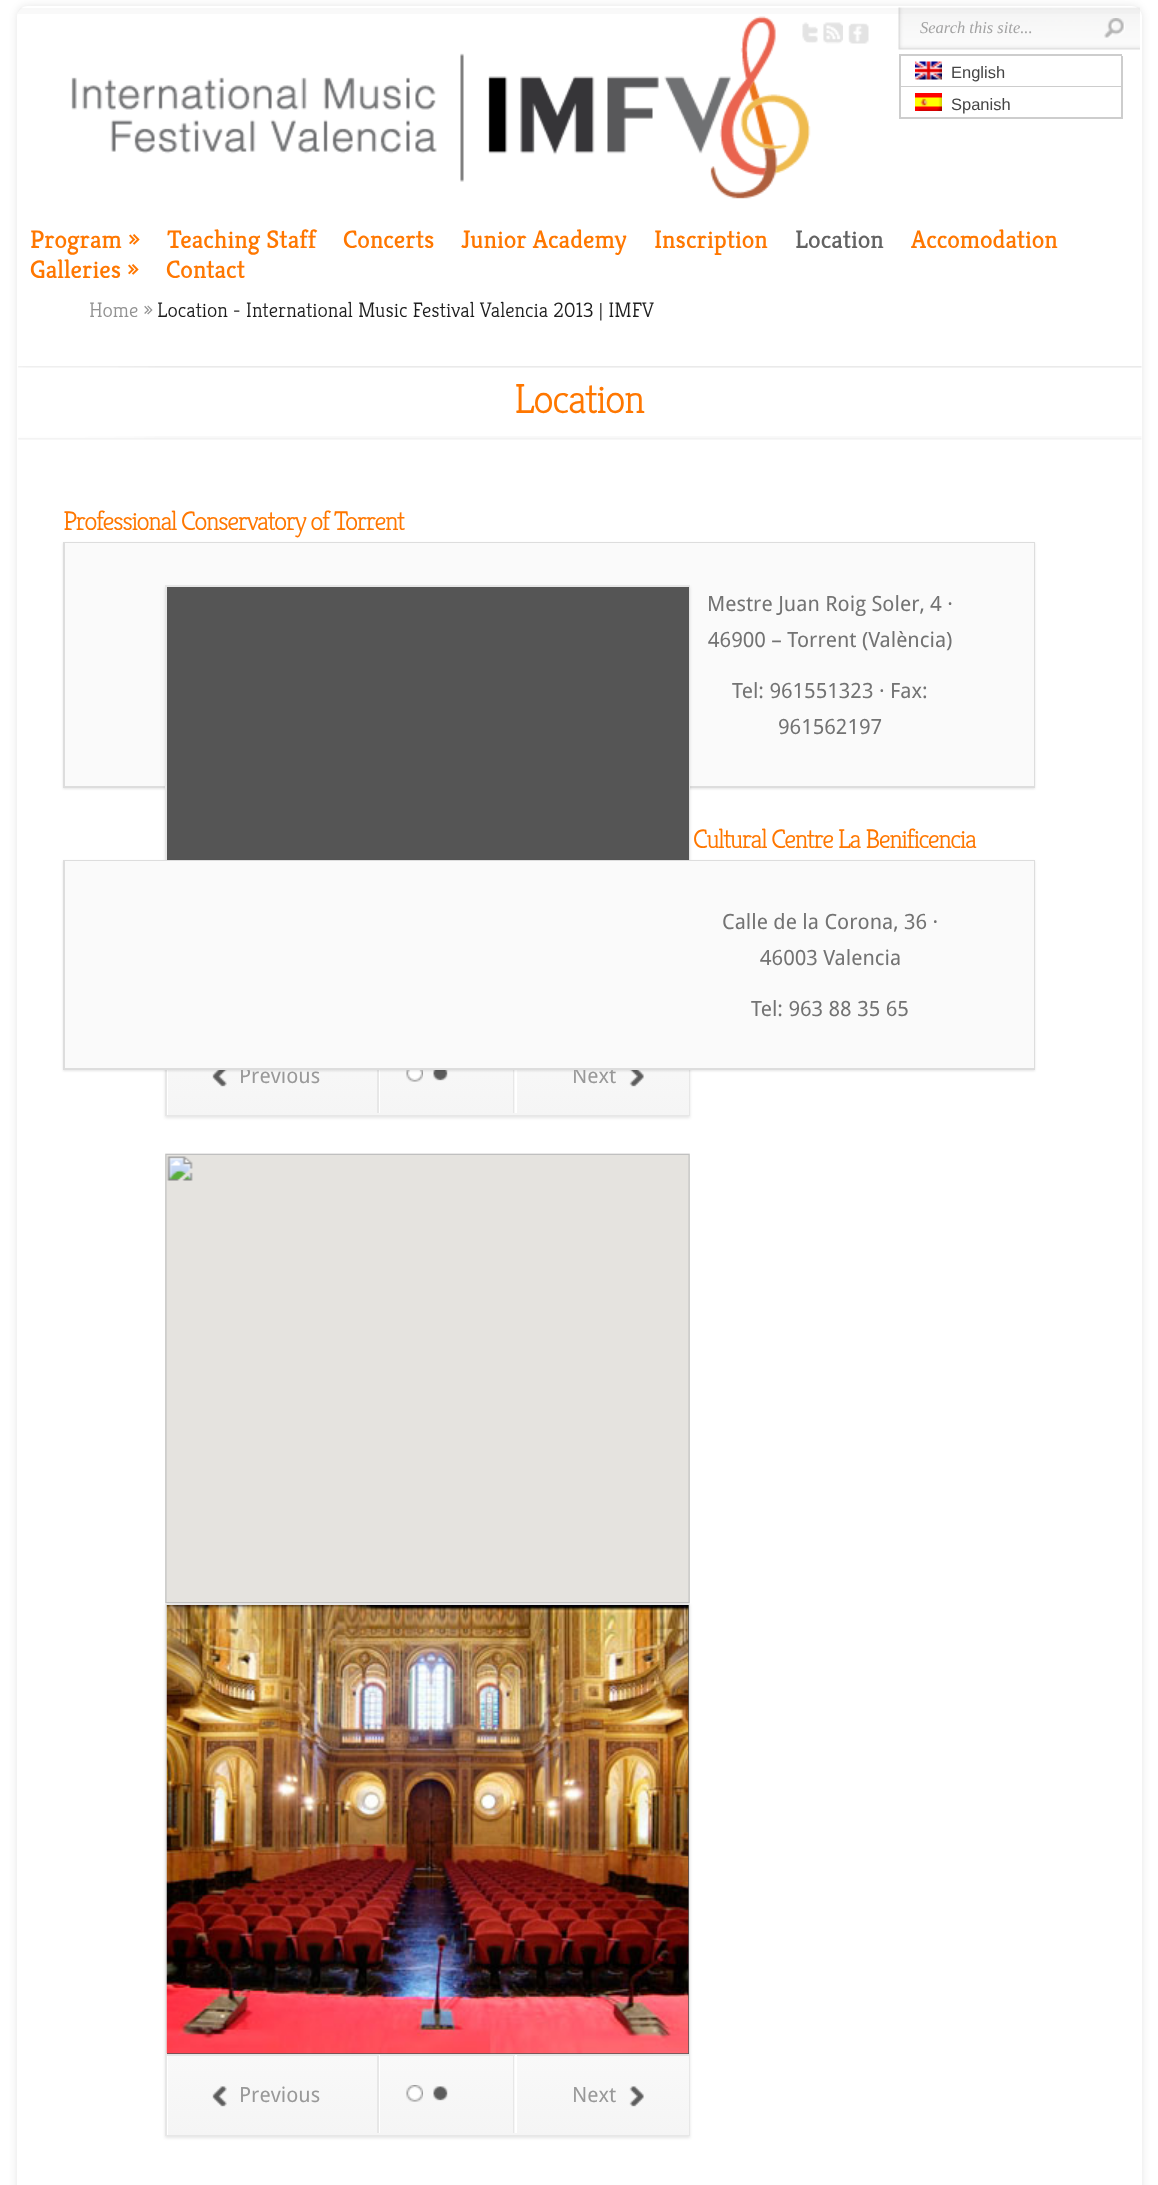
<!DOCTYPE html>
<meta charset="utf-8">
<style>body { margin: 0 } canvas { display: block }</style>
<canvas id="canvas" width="1158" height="2185"></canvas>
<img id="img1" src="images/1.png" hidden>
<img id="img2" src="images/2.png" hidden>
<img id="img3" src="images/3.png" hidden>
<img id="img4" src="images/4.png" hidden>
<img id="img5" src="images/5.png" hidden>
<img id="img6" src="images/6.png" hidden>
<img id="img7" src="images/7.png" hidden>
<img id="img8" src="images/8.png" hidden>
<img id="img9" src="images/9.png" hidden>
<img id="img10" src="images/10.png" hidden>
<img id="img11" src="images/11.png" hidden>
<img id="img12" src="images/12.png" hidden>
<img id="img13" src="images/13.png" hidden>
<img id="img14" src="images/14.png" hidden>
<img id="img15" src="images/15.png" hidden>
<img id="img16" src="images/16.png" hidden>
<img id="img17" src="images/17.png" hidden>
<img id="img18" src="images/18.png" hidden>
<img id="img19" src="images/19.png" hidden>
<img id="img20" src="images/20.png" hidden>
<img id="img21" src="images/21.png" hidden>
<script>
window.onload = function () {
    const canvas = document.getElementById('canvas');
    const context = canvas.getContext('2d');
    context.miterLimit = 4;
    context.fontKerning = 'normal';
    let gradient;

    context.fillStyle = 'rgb(255, 255, 255)';
    context.fillRect(0, 0, 1158, 2185);
    context.fillStyle = 'rgba(0, 0, 0, 0.1)';
    context.filter = 'blur(4.5px)';
    context.beginPath();
    context.roundRect(17, 6, 1125, 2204, 11);
    context.fill();
    context.filter = 'none';
    context.fillStyle = 'rgb(255, 255, 255)';
    context.beginPath();
    context.roundRect(17, 6, 1125, 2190, 11);
    context.fill();
    context.drawImage(document.getElementById('img1'), 18, 8, 1122, 6);
    context.drawImage(document.getElementById('img2'), 71, 16, 740, 183);
    context.drawImage(document.getElementById('img3'), 802, 22, 16, 21);
    context.drawImage(document.getElementById('img4'), 823, 22, 20, 22);
    context.drawImage(document.getElementById('img5'), 848, 23, 21, 21);
    context.drawImage(document.getElementById('img6'), 898, 7, 242, 43);
    context.drawImage(document.getElementById('img7'), 1104, 18, 21, 20);
    context.fillStyle = 'rgb(205, 205, 205)';
    context.fillRect(899, 54, 223, 2);
    context.fillRect(1121, 56, 2, 63);
    context.fillRect(899, 86, 223, 1);
    context.fillRect(899, 56, 2, 31);
    context.drawImage(document.getElementById('img8'), 915, 61, 27, 19);
    context.fillRect(899, 117, 223, 2);
    context.fillRect(899, 87, 2, 32);
    context.drawImage(document.getElementById('img9'), 915, 93, 27, 18);
    context.drawImage(document.getElementById('img10'), 18, 366, 1124, 2);
    context.drawImage(document.getElementById('img11'), 18, 436, 1124, 4);
    context.fillStyle = 'rgba(0, 0, 0, 0.1)';
    context.filter = 'blur(1px)';
    context.beginPath();
    context.rect(63, 543, 972, 246);
    context.fill();
    context.filter = 'none';
    context.strokeStyle = 'rgb(221, 221, 221)';
    context.lineWidth = 2;
    context.strokeRect(64, 543, 970, 244);
    context.fillStyle = 'rgb(250, 250, 250)';
    context.fillRect(65, 543, 969, 243);
    context.fillStyle = 'rgba(0, 0, 0, 0.1)';
    context.filter = 'blur(1.5px)';
    context.beginPath();
    context.rect(165, 587, 525, 531);
    context.fill();
    context.filter = 'none';
    context.strokeStyle = 'rgb(231, 231, 231)';
    context.strokeRect(166, 586, 523, 529);
    context.fillStyle = 'rgb(85, 85, 85)';
    context.fillRect(167, 587, 522, 273);
    gradient = context.createLinearGradient(428, 1035, 428, 1115);
    gradient.addColorStop(0, 'rgb(249, 249, 249)');
    gradient.addColorStop(1, 'rgb(245, 245, 245)');
    context.fillStyle = gradient;
    context.fillRect(168, 1070, 521, 45);
    context.save();
    context.beginPath();
    context.rect(167, 1035, 522, 80);
    context.clip();
    context.fillStyle = 'rgb(255, 255, 255)';
    context.beginPath();
    context.moveTo(18, 886);
    context.lineTo(837, 886);
    context.lineTo(837, 1263);
    context.lineTo(18, 1263);
    context.closePath();
    context.moveTo(168, 1036);
    context.lineTo(690, 1036);
    context.lineTo(690, 1116);
    context.lineTo(168, 1116);
    context.closePath();
    context.fill('evenodd');
    context.restore();
    context.fillStyle = 'rgb(255, 255, 255)';
    context.fillRect(379, 1070, 1, 43);
    context.fillStyle = 'rgb(231, 231, 231)';
    context.fillRect(377, 1070, 2, 43);
    context.drawImage(document.getElementById('img12'), 212, 1070, 15, 17);
    context.fillRect(513, 1070, 1, 43);
    context.fillStyle = 'rgb(255, 255, 255)';
    context.fillRect(515, 1070, 2, 43);
    context.drawImage(document.getElementById('img13'), 629, 1070, 15, 17);
    context.drawImage(document.getElementById('img14'), 406, 1070, 17, 12);
    context.drawImage(document.getElementById('img15'), 433, 1070, 15, 11);
    context.drawImage(document.getElementById('img16'), 165, 1153, 525, 451);
    context.fillStyle = 'rgba(0, 0, 0, 0.1)';
    context.filter = 'blur(1px)';
    context.beginPath();
    context.rect(63, 861, 972, 210);
    context.fill();
    context.filter = 'none';
    context.filter = 'blur(1.5px)';
    context.beginPath();
    context.rect(165, 1605, 525, 533);
    context.fill();
    context.filter = 'none';
    context.strokeRect(166, 1605, 523, 530);
    context.fillStyle = 'rgb(85, 85, 85)';
    context.fillRect(167, 1605, 522, 449);
    context.drawImage(document.getElementById('img17'), 166, 1605, 523, 449);
    gradient = context.createLinearGradient(428, 2055, 428, 2135);
    gradient.addColorStop(0, 'rgb(249, 249, 249)');
    gradient.addColorStop(1, 'rgb(245, 245, 245)');
    context.fillStyle = gradient;
    context.fillRect(168, 2056, 521, 79);
    context.save();
    context.beginPath();
    context.rect(167, 2055, 522, 80);
    context.clip();
    context.fillStyle = 'rgb(255, 255, 255)';
    context.beginPath();
    context.moveTo(18, 1906);
    context.lineTo(837, 1906);
    context.lineTo(837, 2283);
    context.lineTo(18, 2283);
    context.closePath();
    context.moveTo(168, 2056);
    context.lineTo(690, 2056);
    context.lineTo(690, 2136);
    context.lineTo(168, 2136);
    context.closePath();
    context.fill('evenodd');
    context.restore();
    context.fillStyle = 'rgb(231, 231, 231)';
    context.fillRect(167, 2055, 522, 1);
    context.drawImage(document.getElementById('img18'), 406, 2085, 17, 17);
    context.drawImage(document.getElementById('img19'), 433, 2086, 15, 15);
    context.fillStyle = 'rgb(255, 255, 255)';
    context.fillRect(379, 2055, 1, 78);
    context.fillStyle = 'rgb(231, 231, 231)';
    context.fillRect(377, 2055, 2, 78);
    context.drawImage(document.getElementById('img20'), 212, 2086, 15, 21);
    context.fillRect(513, 2055, 1, 78);
    context.fillStyle = 'rgb(255, 255, 255)';
    context.fillRect(515, 2055, 2, 78);
    context.drawImage(document.getElementById('img21'), 629, 2086, 15, 21);
    context.font = 'italic 16.5px Liberation Serif';
    context.fillStyle = 'rgb(163, 163, 163)';
    context.fillText('Search this site...', 920, 33);
    context.font = '16.5px Liberation Sans';
    context.fillStyle = 'rgb(68, 68, 68)';
    context.fillText('English', 951, 78);
    context.fillText('Spanish', 951, 110);
    context.font = '25.5px Kreon';
    context.fillStyle = 'rgb(255, 119, 0)';
    context.fillText('Program »', 30, 248);
    context.fillText('Teaching Staff', 167, 248);
    context.fillText('Concerts', 343, 248);
    context.fillText('Junior Academy', 461, 248);
    context.fillText('Inscription', 654, 248);
    context.fillStyle = 'rgb(99, 99, 99)';
    context.fillText('Location', 795, 248);
    context.fillStyle = 'rgb(255, 119, 0)';
    context.fillText('Accomodation', 911, 248);
    context.fillText('Galleries »', 30, 278);
    context.fillText('Contact', 166, 278);
    context.font = '300 21px Kreon';
    context.fillStyle = 'rgb(146, 146, 146)';
    context.fillText('Home »', 89, 317);
    context.fillStyle = 'rgb(29, 29, 29)';
    context.fillText('Location - International Music Festival Valencia 2013 | IMFV', 157, 317);
    context.letterSpacing = '-1.5px';
    context.font = '300 42px Kreon';
    context.fillStyle = 'rgb(255, 119, 0)';
    context.fillText('Location', 514, 413);
    context.font = '300 27px Kreon';
    context.fillText('Professional Conservatory of Torrent', 63, 530);
    context.letterSpacing = '0px';
    context.font = '21px Droid Sans';
    context.fillStyle = 'rgb(115, 115, 115)';
    context.fillText('Mestre Juan Roig Soler, 4 ·', 707, 611);
    context.fillText('46900 – Torrent (València)', 708, 647);
    context.fillText('Tel: 961551323 · Fax:', 732, 698);
    context.fillText('961562197', 778, 734);
    context.fillStyle = 'rgb(153, 153, 153)';
    context.fillText('Previous', 239, 1083);
    context.fillText('Next', 572, 1083);
    context.letterSpacing = '-1.5px';
    context.font = '300 27px Kreon';
    context.fillStyle = 'rgb(255, 119, 0)';
    context.fillText('Cultural Centre La Benificencia', 693, 848);
    context.strokeStyle = 'rgb(221, 221, 221)';
    context.strokeRect(64, 861, 970, 208);
    context.fillStyle = 'rgb(250, 250, 250)';
    context.fillRect(65, 861, 969, 207);
    context.letterSpacing = '0px';
    context.font = '21px Droid Sans';
    context.fillStyle = 'rgb(115, 115, 115)';
    context.fillText('Calle de la Corona, 36 ·', 722, 929);
    context.fillText('46003 Valencia', 760, 965);
    context.fillText('Tel: 963 88 35 65', 751, 1016);
    context.fillStyle = 'rgb(153, 153, 153)';
    context.fillText('Previous', 239, 2102);
    context.fillText('Next', 572, 2102);
};
</script>
